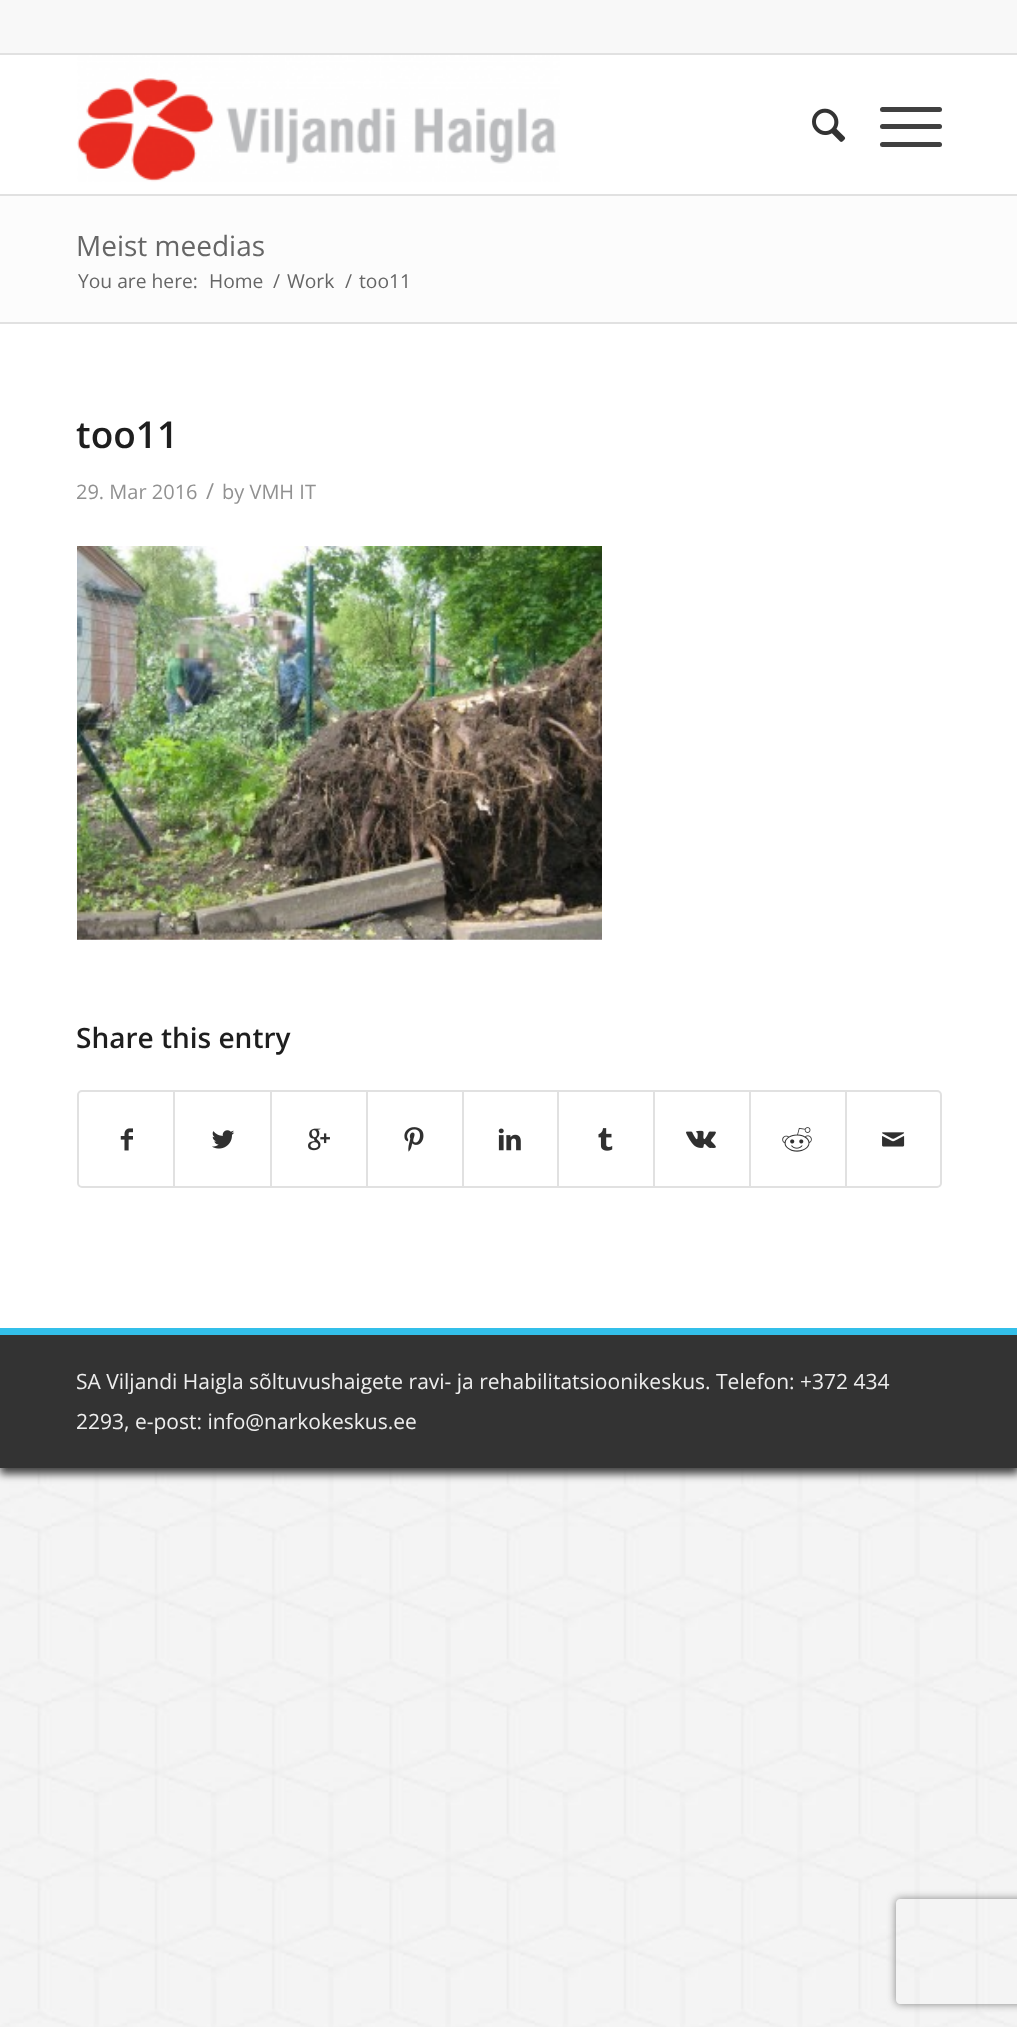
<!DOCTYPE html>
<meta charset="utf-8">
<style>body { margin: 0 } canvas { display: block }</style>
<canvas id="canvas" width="1017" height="2027"></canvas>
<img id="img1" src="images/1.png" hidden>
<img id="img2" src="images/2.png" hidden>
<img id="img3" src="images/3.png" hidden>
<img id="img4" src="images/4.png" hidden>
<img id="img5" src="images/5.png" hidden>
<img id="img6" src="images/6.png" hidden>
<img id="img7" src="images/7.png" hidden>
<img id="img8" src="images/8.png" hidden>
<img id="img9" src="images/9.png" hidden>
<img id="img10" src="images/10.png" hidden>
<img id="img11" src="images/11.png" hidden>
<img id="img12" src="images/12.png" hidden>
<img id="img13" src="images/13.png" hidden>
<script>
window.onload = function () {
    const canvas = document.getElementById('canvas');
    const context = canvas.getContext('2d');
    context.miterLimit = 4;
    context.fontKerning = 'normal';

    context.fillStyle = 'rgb(255, 255, 255)';
    context.fillRect(0, 0, 1017, 2027);
    context.drawImage(document.getElementById('img1'), 0, 1468, 1017, 559);
    context.fillStyle = 'rgb(64, 64, 64)';
    context.filter = 'blur(4.5px)';
    context.beginPath();
    context.rect(0, 5, 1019, 1469);
    context.fill();
    context.filter = 'none';
    context.fillStyle = 'rgb(248, 248, 248)';
    context.fillRect(0, 0, 1017, 53);
    context.fillStyle = 'rgb(225, 225, 225)';
    context.fillRect(0, 53, 1017, 2);
    context.fillStyle = 'rgb(255, 255, 255)';
    context.fillRect(0, 55, 1017, 139);
    context.fillStyle = 'rgb(225, 225, 225)';
    context.fillRect(0, 194, 1017, 2);
    context.drawImage(document.getElementById('img2'), 77, 55, 483, 127);
    context.drawImage(document.getElementById('img3'), 812, 108, 34, 34);
    context.fillStyle = 'rgb(64, 64, 64)';
    context.beginPath();
    context.roundRect(880, 124, 62, 5, 2.5);
    context.fill();
    context.beginPath();
    context.roundRect(880, 107, 62, 5, 2.5);
    context.fill();
    context.beginPath();
    context.roundRect(880, 142, 62, 5, 2.5);
    context.fill();
    context.fillStyle = 'rgb(255, 255, 255)';
    context.fillRect(0, 324, 1017, 1004);
    context.fillStyle = 'rgb(252, 252, 252)';
    context.fillRect(0, 196, 1017, 126);
    context.fillStyle = 'rgb(225, 225, 225)';
    context.fillRect(0, 322, 1017, 2);
    context.drawImage(document.getElementById('img4'), 77, 546, 525, 394);
    context.beginPath();
    context.roundRect(78, 1091, 863, 96, 4);
    context.strokeStyle = 'rgb(225, 225, 225)';
    context.lineWidth = 2;
    context.stroke();
    context.drawImage(document.getElementById('img5'), 120, 1128, 13, 23);
    context.fillRect(173, 1092, 2, 95);
    context.drawImage(document.getElementById('img6'), 212, 1130, 23, 19);
    context.fillRect(270, 1092, 2, 95);
    context.drawImage(document.getElementById('img7'), 308, 1128, 22, 23);
    context.fillRect(366, 1092, 2, 95);
    context.drawImage(document.getElementById('img8'), 404, 1127, 20, 25);
    context.fillRect(462, 1092, 2, 95);
    context.drawImage(document.getElementById('img9'), 498, 1128, 23, 23);
    context.fillRect(557, 1092, 2, 95);
    context.drawImage(document.getElementById('img10'), 598, 1128, 15, 23);
    context.fillRect(653, 1092, 2, 95);
    context.drawImage(document.getElementById('img11'), 686, 1130, 30, 18);
    context.fillRect(749, 1092, 2, 95);
    context.drawImage(document.getElementById('img12'), 782, 1127, 30, 25);
    context.fillRect(845, 1092, 2, 95);
    context.drawImage(document.getElementById('img13'), 882, 1132, 23, 15);
    context.fillStyle = 'rgb(51, 51, 51)';
    context.fillRect(0, 1335, 1017, 133);
    context.fillStyle = 'rgb(51, 191, 233)';
    context.fillRect(0, 1328, 1017, 7);
    context.save();
    context.beginPath();
    context.moveTo(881, 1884);
    context.lineTo(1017, 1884);
    context.lineTo(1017, 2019);
    context.lineTo(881, 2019);
    context.closePath();
    context.moveTo(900, 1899);
    context.lineTo(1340, 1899);
    context.bezierCurveTo(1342, 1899, 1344, 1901, 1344, 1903);
    context.lineTo(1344, 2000);
    context.bezierCurveTo(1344, 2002, 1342, 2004, 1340, 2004);
    context.lineTo(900, 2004);
    context.bezierCurveTo(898, 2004, 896, 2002, 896, 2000);
    context.lineTo(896, 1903);
    context.bezierCurveTo(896, 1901, 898, 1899, 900, 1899);
    context.closePath();
    context.clip('evenodd');
    context.fillStyle = 'rgb(128, 128, 128)';
    context.filter = 'blur(4.5px)';
    context.beginPath();
    context.roundRect(896, 1899, 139, 105, 4);
    context.fill();
    context.filter = 'none';
    context.restore();
    context.font = '28px Open Sans';
    context.fillStyle = 'rgb(102, 102, 102)';
    context.fillText('Meist meedias', 76, 256);
    context.font = '19.25px Open Sans';
    context.fillText('You are here:', 78, 288);
    context.fillText('Home', 209, 288);
    context.fillText('/', 273, 288);
    context.fillText('Work', 287, 288);
    context.fillText('/', 345, 288);
    context.fillText('too11', 359, 288);
    context.font = '600 37px Open Sans';
    context.fillStyle = 'rgb(30, 30, 30)';
    context.fillText('too11', 76, 448);
    context.font = '20px Open Sans';
    context.fillStyle = 'rgb(145, 145, 145)';
    context.fillText('29. Mar 2016', 76, 499);
    context.font = '22px Open Sans';
    context.fillText('/', 206, 499);
    context.font = '20px Open Sans';
    context.fillText('by VMH IT', 222, 499);
    context.font = '600 28px Open Sans';
    context.fillStyle = 'rgb(30, 30, 30)';
    context.fillText('Share this entry', 76, 1048);
    context.font = '21px Open Sans';
    context.fillStyle = 'rgb(238, 238, 238)';
    context.fillText('SA Viljandi Haigla sõltuvushaigete ravi- ja rehabilitatsioonikeskus. Telefon: +372 434', 76, 1389);
    context.fillText('2293, e-post: info@narkokeskus.ee', 76, 1429);
};
</script>
